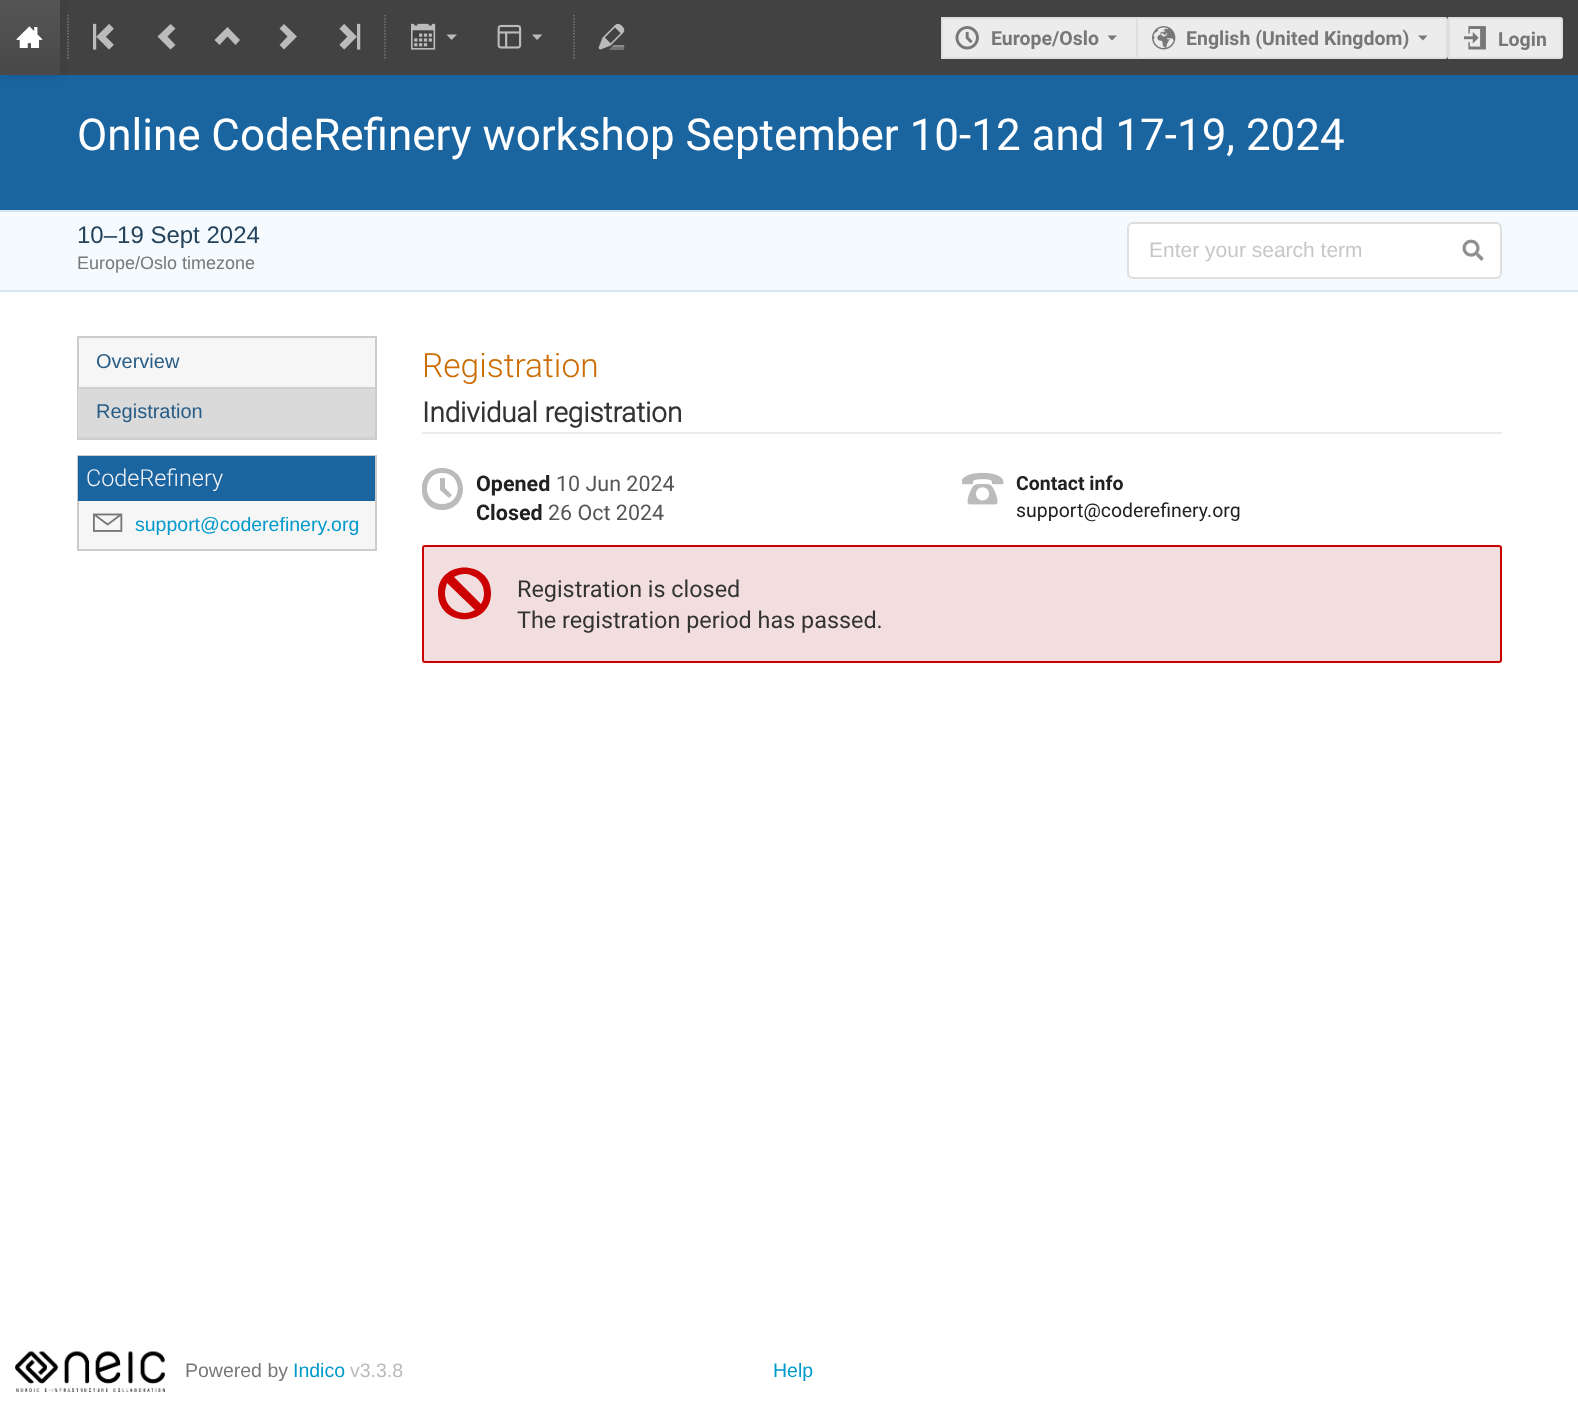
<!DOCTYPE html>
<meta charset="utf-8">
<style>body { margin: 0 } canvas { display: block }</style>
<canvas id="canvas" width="1578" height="1415"></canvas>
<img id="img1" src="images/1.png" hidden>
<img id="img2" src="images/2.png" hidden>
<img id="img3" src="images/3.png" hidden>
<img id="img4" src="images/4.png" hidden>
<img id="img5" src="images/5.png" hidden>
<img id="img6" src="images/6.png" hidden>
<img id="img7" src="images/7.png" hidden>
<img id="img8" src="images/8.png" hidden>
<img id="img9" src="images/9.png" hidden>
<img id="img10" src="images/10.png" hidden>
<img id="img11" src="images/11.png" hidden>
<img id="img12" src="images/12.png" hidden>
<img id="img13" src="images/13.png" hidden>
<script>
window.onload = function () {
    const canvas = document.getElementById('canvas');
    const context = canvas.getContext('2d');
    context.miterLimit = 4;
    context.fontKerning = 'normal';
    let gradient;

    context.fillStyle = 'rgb(255, 255, 255)';
    context.fillRect(0, 0, 1578, 1415);
    context.fillStyle = 'rgb(66, 66, 66)';
    context.fillRect(60, 0, 1518, 75);
    context.fillStyle = 'rgb(26, 100, 160)';
    context.fillRect(0, 75, 1578, 135);
    context.fillStyle = 'rgba(20, 20, 20, 0.1)';
    context.filter = 'blur(3px)';
    context.beginPath();
    context.rect(2, 2, 60, 75);
    context.fill();
    context.filter = 'none';
    gradient = context.createLinearGradient(30, 0, 30, 75);
    gradient.addColorStop(0, 'rgb(85, 85, 85)');
    gradient.addColorStop(1, 'rgb(72, 72, 72)');
    context.fillStyle = gradient;
    context.fillRect(0, 0, 60, 75);
    context.drawImage(document.getElementById('img1'), 16, 26, 27, 22);
    context.beginPath();
    context.moveTo(68, 15);
    context.lineTo(68, 60);
    context.strokeStyle = 'rgb(119, 119, 119)';
    context.lineWidth = 1.5;
    context.setLineDash([1.5, 1.5]);
    context.stroke();
    context.drawImage(document.getElementById('img2'), 93, 23, 21, 27);
    context.fillStyle = 'rgb(187, 187, 187)';
    context.beginPath();
    context.moveTo(170.5, 49.5);
    context.lineTo(175.5, 45);
    context.lineTo(167.5, 36.5);
    context.lineTo(175.5, 28.5);
    context.lineTo(170.5, 24);
    context.lineTo(157.5, 36.5);
    context.closePath();
    context.fill();
    context.beginPath();
    context.moveTo(214.5, 40);
    context.lineTo(219.5, 45);
    context.lineTo(227.5, 36.5);
    context.lineTo(235.5, 45);
    context.lineTo(240, 40);
    context.lineTo(227.5, 27);
    context.closePath();
    context.fill();
    context.beginPath();
    context.moveTo(284, 24);
    context.lineTo(279.5, 28.5);
    context.lineTo(287.5, 36.5);
    context.lineTo(279.5, 45);
    context.lineTo(284, 49.5);
    context.lineTo(297, 36.5);
    context.closePath();
    context.fill();
    context.drawImage(document.getElementById('img3'), 339, 23, 22, 27);
    context.beginPath();
    context.moveTo(385, 15);
    context.lineTo(385, 60);
    context.stroke();
    context.drawImage(document.getElementById('img4'), 411, 23, 25, 27);
    context.beginPath();
    context.moveTo(446.5, 34.5);
    context.lineTo(451.5, 40);
    context.lineTo(457, 34.5);
    context.closePath();
    context.fill();
    context.drawImage(document.getElementById('img5'), 497, 24, 25, 25);
    context.beginPath();
    context.moveTo(532, 34.5);
    context.lineTo(537, 40);
    context.lineTo(542.5, 34.5);
    context.closePath();
    context.fill();
    context.beginPath();
    context.moveTo(574, 15);
    context.lineTo(574, 60);
    context.stroke();
    context.drawImage(document.getElementById('img6'), 598, 23, 27, 27);
    context.fillStyle = 'rgb(236, 236, 236)';
    context.fillRect(943, 19, 193, 38);
    context.fillStyle = 'rgb(223, 223, 223)';
    context.fillRect(941, 17, 195, 2);
    context.fillRect(941, 57, 195, 2);
    context.fillRect(941, 17, 2, 42);
    context.drawImage(document.getElementById('img7'), 955, 26, 24, 24);
    context.fillStyle = 'rgb(119, 119, 119)';
    context.beginPath();
    context.moveTo(1107.5, 35.5);
    context.lineTo(1112, 40.5);
    context.lineTo(1117, 35.5);
    context.closePath();
    context.fill();
    context.fillStyle = 'rgb(236, 236, 236)';
    context.beginPath();
    context.roundRect(1137, 18, 310, 40, [0, 2, 2, 0]);
    context.fill();
    context.strokeStyle = 'rgb(223, 223, 223)';
    context.lineWidth = 2;
    context.setLineDash([]);
    context.stroke();
    context.drawImage(document.getElementById('img8'), 1152, 26, 24, 24);
    context.fillStyle = 'rgb(119, 119, 119)';
    context.beginPath();
    context.moveTo(1418, 35.5);
    context.lineTo(1423, 40.5);
    context.lineTo(1427.5, 35.5);
    context.closePath();
    context.fill();
    context.fillStyle = 'rgb(236, 236, 236)';
    context.beginPath();
    context.roundRect(1449, 18, 113, 40, [0, 2, 2, 0]);
    context.fill();
    context.stroke();
    context.drawImage(document.getElementById('img9'), 1464, 26, 22, 24);
    context.fillStyle = 'rgb(245, 250, 255)';
    context.fillRect(0, 212, 1578, 78);
    context.fillStyle = 'rgb(213, 228, 241)';
    context.fillRect(0, 210, 1578, 2);
    context.fillRect(0, 290, 1578, 2);
    context.fillStyle = 'rgb(255, 255, 255)';
    context.beginPath();
    context.roundRect(1128, 223, 373, 55, 5);
    context.fill();
    context.strokeStyle = 'rgb(222, 222, 222)';
    context.stroke();
    context.drawImage(document.getElementById('img10'), 1462, 239, 22, 22);
    context.fillStyle = 'rgb(246, 246, 246)';
    context.fillRect(79, 338, 296, 49);
    context.strokeStyle = 'rgb(204, 204, 204)';
    context.strokeRect(78, 337, 298, 102);
    context.fillStyle = 'rgb(218, 218, 218)';
    context.fillRect(78, 389, 297, 48);
    context.fillStyle = 'rgb(208, 208, 208)';
    context.fillRect(78, 387, 297, 2);
    context.fillRect(78, 437, 297, 2);
    context.fillStyle = 'rgb(246, 246, 246)';
    context.fillRect(79, 501, 296, 48);
    context.strokeRect(78, 456, 298, 94);
    context.fillStyle = 'rgb(26, 100, 160)';
    context.fillRect(78, 456, 297, 45);
    context.drawImage(document.getElementById('img11'), 93, 513, 30, 19);
    context.fillStyle = 'rgb(235, 235, 235)';
    context.fillRect(422, 432, 1080, 2);
    context.save();
    context.beginPath();
    context.rect(422, 468, 540, 57);
    context.clip();
    context.fillStyle = 'rgb(187, 187, 187)';
    context.beginPath();
    context.moveTo(449, 498);
    context.lineTo(440, 490);
    context.lineTo(440, 478);
    context.lineTo(445, 478);
    context.lineTo(445, 488);
    context.lineTo(452, 495);
    context.closePath();
    context.moveTo(442, 468);
    context.bezierCurveTo(415, 468, 415, 510, 442, 510);
    context.bezierCurveTo(470, 510, 470, 468, 442, 468);
    context.closePath();
    context.moveTo(442, 504);
    context.bezierCurveTo(422, 504, 422, 473, 442, 473);
    context.bezierCurveTo(463, 473, 463, 504, 442, 504);
    context.closePath();
    context.fill();
    context.restore();
    context.drawImage(document.getElementById('img12'), 962, 472, 42, 33);
    context.fillStyle = 'rgb(242, 222, 222)';
    context.beginPath();
    context.roundRect(423, 546, 1078, 116, 2);
    context.fill();
    context.strokeStyle = 'rgb(204, 0, 0)';
    context.stroke();
    context.fillStyle = 'rgb(204, 0, 0)';
    context.beginPath();
    context.moveTo(438, 593);
    context.bezierCurveTo(438, 628, 491, 628, 491, 593);
    context.bezierCurveTo(491, 559, 438, 559, 438, 593);
    context.closePath();
    context.moveTo(484, 593);
    context.bezierCurveTo(484, 597, 483, 601, 481, 604);
    context.lineTo(454, 577);
    context.bezierCurveTo(467, 569, 484, 578, 484, 593);
    context.closePath();
    context.moveTo(445, 593);
    context.bezierCurveTo(445, 590, 446, 586, 447, 583);
    context.lineTo(475, 610);
    context.bezierCurveTo(462, 618, 445, 609, 445, 593);
    context.closePath();
    context.fill();
    context.drawImage(document.getElementById('img13'), 15, 1351, 150, 41);
    context.font = 'bold 19.5px Roboto';
    context.fillStyle = 'rgb(119, 119, 119)';
    context.fillText('Europe/Oslo', 991, 45);
    context.fillText('English (United Kingdom)', 1186, 45);
    context.fillText('Login', 1498, 46);
    context.font = '44px Roboto';
    context.fillStyle = 'rgb(255, 255, 255)';
    context.fillText('Online CodeRefinery workshop September 10-12 and 17-19, 2024', 77, 150);
    context.font = '24px Liberation Sans';
    context.fillStyle = 'rgb(36, 66, 90)';
    context.fillText('10–19 Sept 2024', 77, 243);
    context.font = '18px Liberation Sans';
    context.fillStyle = 'rgb(119, 119, 119)';
    context.fillText('Europe/Oslo timezone', 77, 269);
    context.font = '21px "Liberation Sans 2"';
    context.fillStyle = 'rgb(199, 199, 199)';
    context.fillText('Enter your search term', 1149, 257);
    context.font = '20px "Liberation Sans 2"';
    context.fillStyle = 'rgb(39, 92, 134)';
    context.fillText('Overview', 96, 368);
    context.fillText('Registration', 96, 418);
    context.font = '300 23.4px Roboto';
    context.fillStyle = 'rgb(243, 243, 243)';
    context.fillText('CodeRefinery', 86, 486);
    context.font = '19.5px Liberation Sans';
    context.fillStyle = 'rgb(0, 153, 204)';
    context.fillText('support@coderefinery.org', 135, 531);
    context.font = '300 33.5px Roboto';
    context.fillStyle = 'rgb(203, 109, 4)';
    context.fillText('Registration', 422, 377);
    context.font = 'bold 27.75px "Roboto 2"';
    context.fillStyle = 'rgb(51, 51, 51)';
    context.fillText('Individual registration', 422, 422);
    context.font = 'bold 21.5px Roboto';
    context.fillStyle = 'rgb(33, 33, 33)';
    context.fillText('Opened', 476, 491);
    context.font = '21.5px Roboto';
    context.fillStyle = 'rgb(85, 85, 85)';
    context.fillText('10 Jun 2024', 556, 491);
    context.font = 'bold 21.5px Roboto';
    context.fillStyle = 'rgb(33, 33, 33)';
    context.fillText('Closed', 476, 520);
    context.font = '21.5px Roboto';
    context.fillStyle = 'rgb(85, 85, 85)';
    context.fillText('26 Oct 2024', 548, 520);
    context.font = 'bold 19.5px Roboto';
    context.fillStyle = 'rgb(33, 33, 33)';
    context.fillText('Contact info', 1016, 490);
    context.font = '19.5px Roboto';
    context.fillText('support@coderefinery.org', 1016, 517);
    context.font = '23.4px Roboto';
    context.fillStyle = 'rgb(51, 51, 51)';
    context.fillText('Registration is closed', 517, 597);
    context.fillText('The registration period has passed.', 517, 628);
    context.font = '19.5px Liberation Sans';
    context.fillStyle = 'rgb(119, 119, 119)';
    context.fillText('Powered by', 185, 1377);
    context.fillStyle = 'rgb(0, 153, 204)';
    context.fillText('Indico', 293, 1377);
    context.fillStyle = 'rgb(187, 187, 187)';
    context.fillText('v3.3.8', 350, 1377);
    context.fillStyle = 'rgb(0, 153, 204)';
    context.fillText('Help', 773, 1377);
};
</script>
